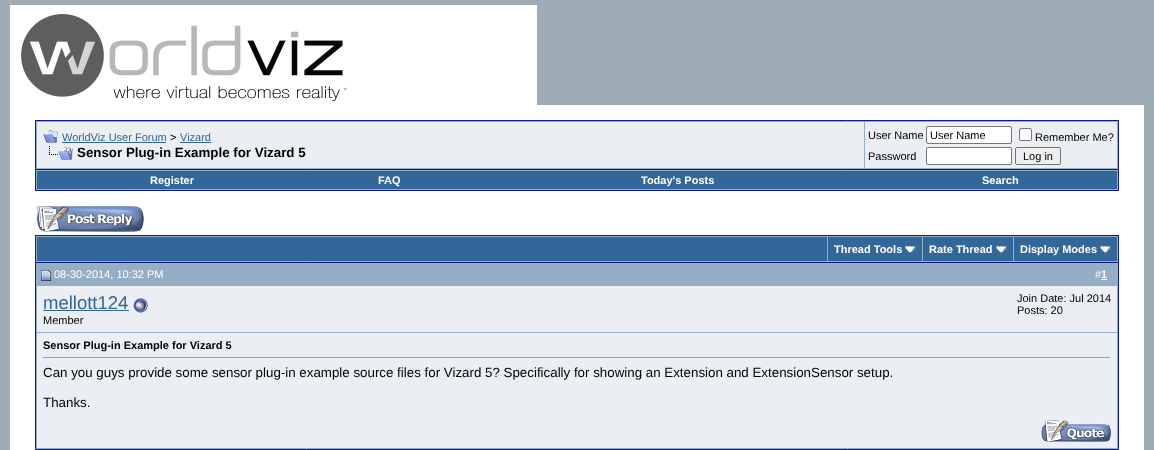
<!DOCTYPE html>
<meta charset="utf-8">
<style>body { margin: 0 } canvas { display: block }</style>
<canvas id="canvas" width="1154" height="450"></canvas>
<img id="img1" src="images/1.png" hidden>
<img id="img2" src="images/2.png" hidden>
<img id="img3" src="images/3.png" hidden>
<img id="img4" src="images/4.png" hidden>
<img id="img5" src="images/5.png" hidden>
<img id="img6" src="images/6.png" hidden>
<img id="img7" src="images/7.png" hidden>
<img id="img8" src="images/8.png" hidden>
<script>
window.onload = function () {
    const canvas = document.getElementById('canvas');
    const context = canvas.getContext('2d');
    context.miterLimit = 4;
    context.fontKerning = 'normal';

    context.fillStyle = 'rgb(158, 172, 181)';
    context.fillRect(0, 0, 1154, 450);
    context.drawImage(document.getElementById('img1'), 10, 5, 527, 100);
    context.fillStyle = 'rgb(255, 255, 255)';
    context.fillRect(10, 105, 1134, 345);
    context.fillStyle = 'rgb(149, 173, 197)';
    context.beginPath();
    context.rect(35.5, 120.5, 1083, 49);
    context.fill();
    context.strokeStyle = 'rgb(11, 25, 140)';
    context.stroke();
    context.fillStyle = 'rgb(235, 238, 243)';
    context.fillRect(37, 122, 827, 46);
    context.drawImage(document.getElementById('img2'), 43, 130, 15, 13);
    context.fillStyle = 'rgb(51, 102, 153)';
    context.fillRect(62, 142, 104, 1);
    context.fillRect(180, 142, 31, 1);
    context.drawImage(document.getElementById('img3'), 49, 146, 24, 14);
    context.fillStyle = 'rgb(235, 238, 243)';
    context.fillRect(865, 122, 252, 46);
    context.fillStyle = 'rgb(255, 255, 255)';
    context.beginPath();
    context.roundRect(926.5, 126.5, 85, 17, 1.5);
    context.fill();
    context.strokeStyle = 'rgb(118, 118, 118)';
    context.stroke();
    context.beginPath();
    context.roundRect(1019.5, 128.5, 12, 12, 1.5);
    context.fill();
    context.stroke();
    context.beginPath();
    context.roundRect(926.5, 147.5, 85, 17, 1.5);
    context.fill();
    context.stroke();
    context.fillStyle = 'rgb(239, 239, 239)';
    context.beginPath();
    context.roundRect(1015.5, 147.5, 45, 17, 1.5);
    context.fill();
    context.stroke();
    context.fillStyle = 'rgb(149, 173, 197)';
    context.fillRect(36, 170, 1082, 20);
    context.fillStyle = 'rgb(11, 25, 140)';
    context.fillRect(1118, 170, 1, 21);
    context.fillRect(35, 190, 1084, 1);
    context.fillRect(35, 170, 1, 21);
    context.fillStyle = 'rgb(51, 102, 153)';
    context.fillRect(37, 171, 1080, 18);
    context.drawImage(document.getElementById('img4'), 36, 206, 108, 26);
    context.fillStyle = 'rgb(149, 173, 197)';
    context.fillRect(36, 236, 1082, 26);
    context.fillStyle = 'rgb(11, 25, 140)';
    context.fillRect(35, 235, 1084, 1);
    context.fillRect(1118, 235, 1, 27);
    context.fillRect(35, 235, 1, 27);
    context.fillStyle = 'rgb(51, 102, 153)';
    context.fillRect(37, 237, 790, 24);
    context.fillRect(828, 237, 94, 24);
    context.drawImage(document.getElementById('img5'), 905, 246, 11, 7);
    context.fillRect(923, 237, 90, 24);
    context.drawImage(document.getElementById('img5'), 996, 246, 11, 7);
    context.fillRect(1014, 237, 103, 24);
    context.drawImage(document.getElementById('img5'), 1100, 246, 11, 7);
    context.fillStyle = 'rgb(149, 173, 197)';
    context.beginPath();
    context.rect(35.5, 262.5, 1083, 187);
    context.fill();
    context.strokeStyle = 'rgb(11, 25, 140)';
    context.stroke();
    context.drawImage(document.getElementById('img6'), 41, 270, 10, 11);
    context.fillStyle = 'rgb(255, 255, 255)';
    context.fillRect(1101, 279, 6, 1);
    context.fillStyle = 'rgb(235, 238, 243)';
    context.fillRect(37, 286, 1080, 46);
    context.fillStyle = 'rgb(51, 102, 153)';
    context.fillRect(43, 310, 86, 1);
    context.drawImage(document.getElementById('img7'), 133, 298, 15, 15);
    context.fillStyle = 'rgb(235, 238, 243)';
    context.fillRect(37, 333, 1080, 115);
    context.fillStyle = 'rgb(159, 159, 159)';
    context.fillRect(43, 357, 1068, 1);
    context.fillStyle = 'rgb(238, 238, 238)';
    context.fillRect(1110, 357, 1, 1);
    context.drawImage(document.getElementById('img8'), 1041, 420, 70, 22);
    context.font = '11px Liberation Sans';
    context.fillStyle = 'rgb(51, 102, 153)';
    context.fillText('WorldViz User Forum', 62, 141);
    context.fillStyle = 'rgb(0, 0, 0)';
    context.fillText('>', 170, 141);
    context.fillStyle = 'rgb(51, 102, 153)';
    context.fillText('Vizard', 180, 141);
    context.font = 'bold 13.33px Liberation Sans';
    context.fillStyle = 'rgb(0, 0, 0)';
    context.fillText('Sensor Plug-in Example for Vizard 5', 77, 157);
    context.font = '11px Liberation Sans';
    context.fillText('User Name', 868, 139);
    context.fillText('User Name', 930, 139);
    context.fillText('Remember Me?', 1035, 141);
    context.fillText('Password', 868, 160);
    context.fillText('Log in', 1023, 160);
    context.font = 'bold 11px Liberation Sans';
    context.fillStyle = 'rgb(255, 255, 255)';
    context.fillText('Register', 150, 184);
    context.fillText('FAQ', 378, 184);
    context.fillText('Today\'s Posts', 641, 184);
    context.fillText('Search', 982, 184);
    context.fillText('Thread Tools', 834, 253);
    context.fillText('Rate Thread', 929, 253);
    context.fillText('Display Modes', 1020, 253);
    context.font = '11px Liberation Sans';
    context.fillText('08-30-2014, 10:32 PM', 54, 278);
    context.fillText('#', 1095, 278);
    context.font = 'bold 11px Liberation Sans';
    context.fillText('1', 1101, 278);
    context.font = '18.5px Liberation Sans';
    context.fillStyle = 'rgb(51, 102, 153)';
    context.fillText('mellott124', 43, 309);
    context.font = '11px Liberation Sans';
    context.fillStyle = 'rgb(0, 0, 0)';
    context.fillText('Member', 43, 324);
    context.fillText('Join Date: Jul 2014', 1017, 302);
    context.fillText('Posts: 20', 1017, 314);
    context.font = 'bold 11px Liberation Sans';
    context.fillText('Sensor Plug-in Example for Vizard 5', 43, 349);
    context.font = '13.33px Liberation Sans';
    context.fillText('Can you guys provide some sensor plug-in example source files for Vizard 5? Specifically for showing an Extension and ExtensionSensor setup.', 43, 377);
    context.fillText('Thanks.', 43, 407);
};
</script>
